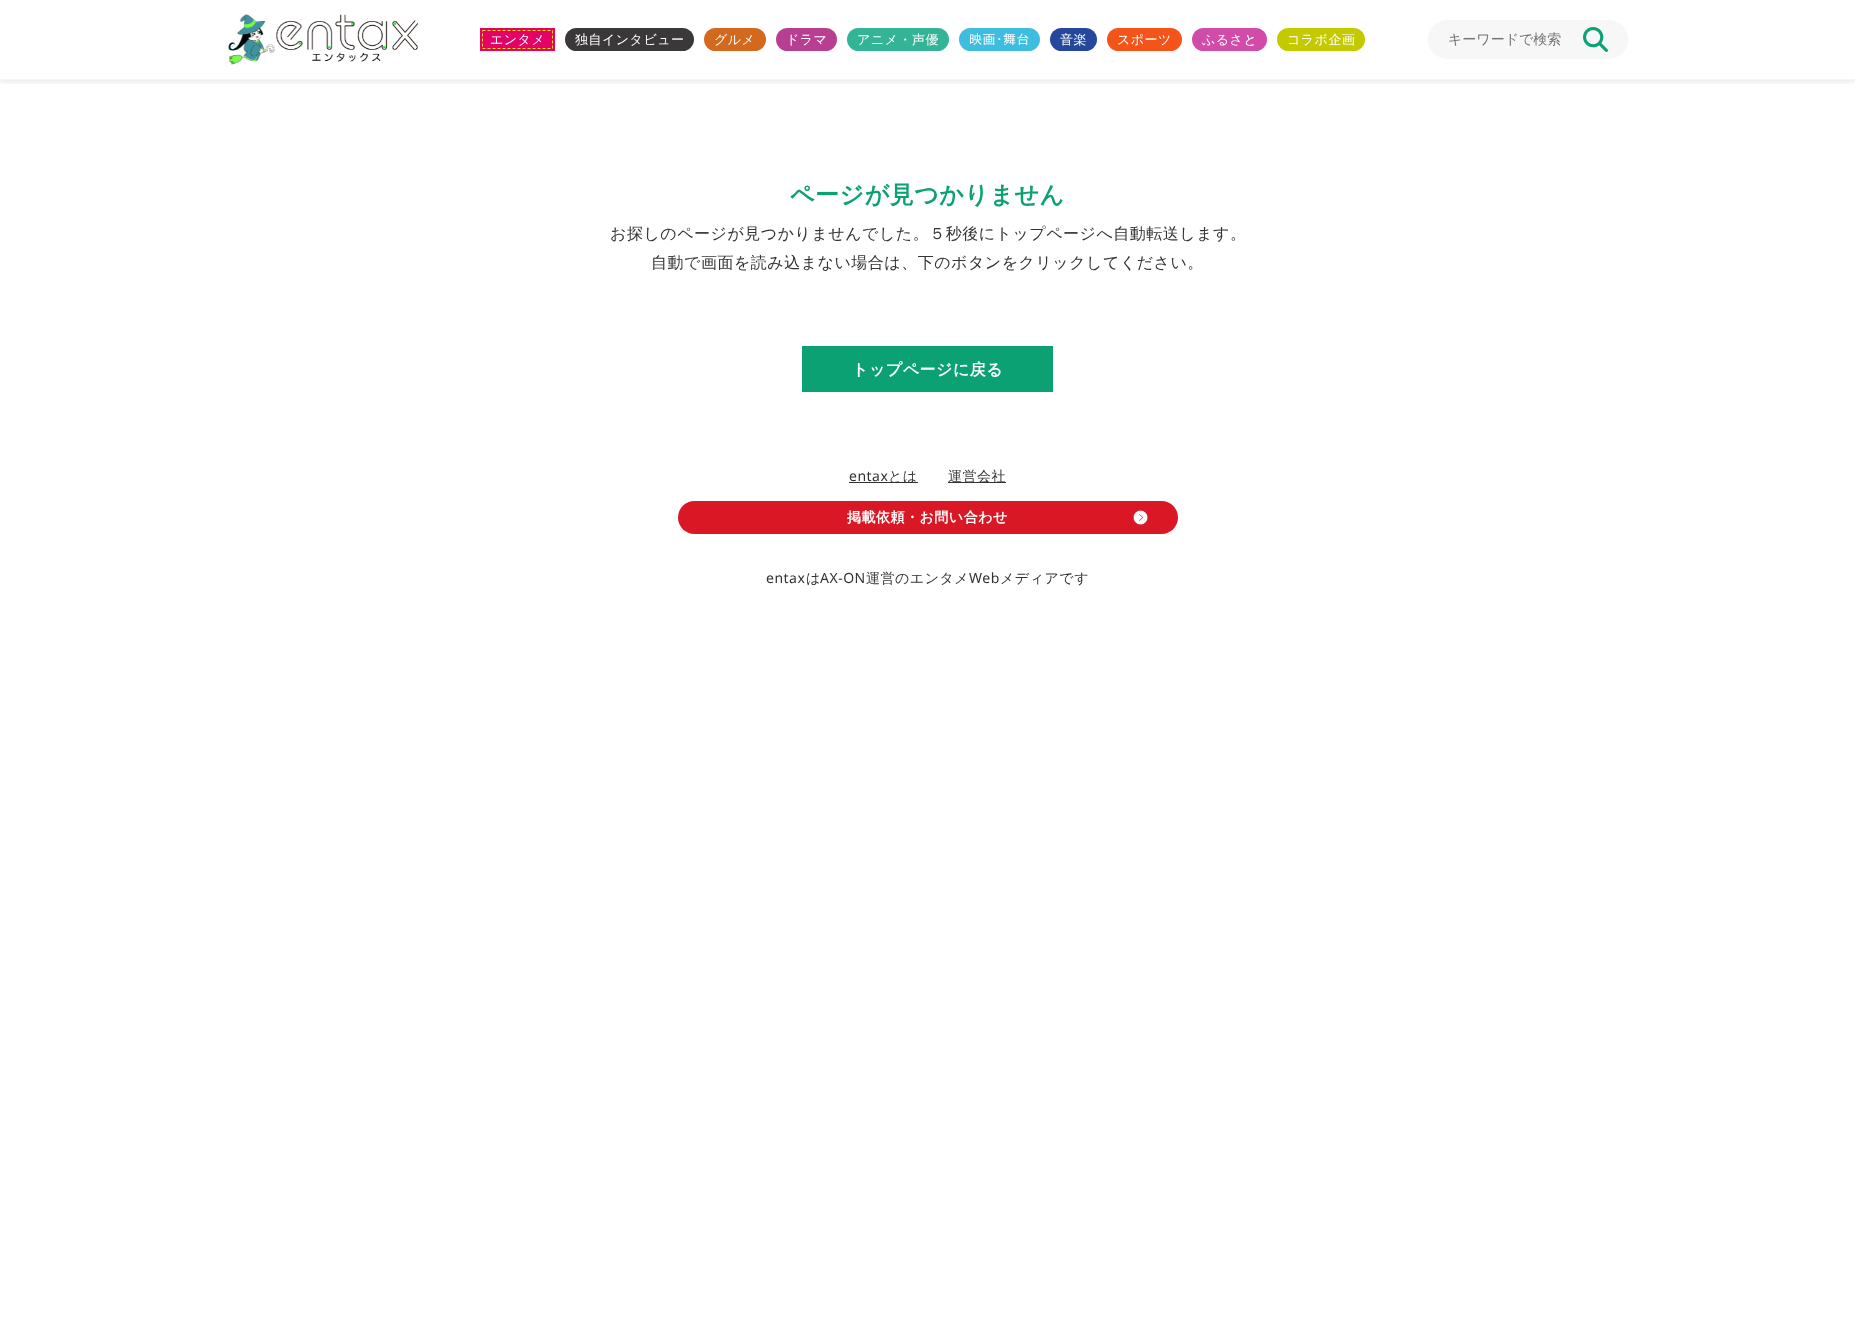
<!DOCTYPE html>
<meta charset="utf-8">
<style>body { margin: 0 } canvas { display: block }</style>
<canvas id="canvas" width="1855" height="1328"></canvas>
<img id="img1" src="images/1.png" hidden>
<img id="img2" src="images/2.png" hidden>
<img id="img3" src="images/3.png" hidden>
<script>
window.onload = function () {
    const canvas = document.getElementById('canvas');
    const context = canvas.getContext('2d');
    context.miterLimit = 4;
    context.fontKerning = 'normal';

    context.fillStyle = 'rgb(255, 255, 255)';
    context.fillRect(0, 0, 1855, 1328);
    context.save();
    context.beginPath();
    context.rect(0, 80, 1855, 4);
    context.clip();
    context.fillStyle = 'rgba(0, 0, 0, 0.15)';
    context.filter = 'blur(4px)';
    context.beginPath();
    context.rect(0, 0, 1855, 80);
    context.fill();
    context.filter = 'none';
    context.restore();
    context.fillStyle = 'rgb(243, 247, 248)';
    context.fillRect(0, 79, 1855, 1);
    context.drawImage(document.getElementById('img1'), 228, 14, 190, 51);
    context.fillStyle = 'rgb(228, 0, 103)';
    context.fillRect(480, 28, 75, 23);
    context.fillStyle = 'rgb(58, 56, 57)';
    context.beginPath();
    context.roundRect(565, 28, 129, 23, 11.5);
    context.fill();
    context.fillStyle = 'rgb(210, 105, 30)';
    context.beginPath();
    context.roundRect(704, 28, 62, 23, 11.5);
    context.fill();
    context.fillStyle = 'rgb(183, 62, 145)';
    context.beginPath();
    context.roundRect(776, 28, 61, 23, 11.5);
    context.fill();
    context.fillStyle = 'rgb(52, 180, 150)';
    context.beginPath();
    context.roundRect(847, 28, 102, 23, 11.5);
    context.fill();
    context.fillStyle = 'rgb(62, 189, 224)';
    context.beginPath();
    context.roundRect(959, 28, 81, 23, 11.5);
    context.fill();
    context.fillStyle = 'rgb(37, 72, 156)';
    context.beginPath();
    context.roundRect(1050, 28, 47, 23, 11.5);
    context.fill();
    context.fillStyle = 'rgb(244, 84, 25)';
    context.beginPath();
    context.roundRect(1107, 28, 75, 23, 11.5);
    context.fill();
    context.fillStyle = 'rgb(208, 76, 168)';
    context.beginPath();
    context.roundRect(1192, 28, 75, 23, 11.5);
    context.fill();
    context.fillStyle = 'rgb(196, 202, 0)';
    context.beginPath();
    context.roundRect(1277, 28, 88, 23, 11.5);
    context.fill();
    context.fillStyle = 'rgb(247, 247, 247)';
    context.beginPath();
    context.roundRect(1428, 20, 200, 39, 19.5);
    context.fill();
    context.drawImage(document.getElementById('img2'), 1583, 27, 25, 25);
    context.fillStyle = 'rgb(11, 161, 115)';
    context.fillRect(802, 346, 251, 46);
    context.fillStyle = 'rgb(51, 51, 51)';
    context.fillRect(849, 482, 69, 1);
    context.fillRect(948, 482, 58, 1);
    context.fillStyle = 'rgb(218, 23, 37)';
    context.beginPath();
    context.roundRect(678, 501, 500, 33, 16.5);
    context.fill();
    context.drawImage(document.getElementById('img3'), 1133, 510, 15, 15);
    context.letterSpacing = '0.5px';
    context.font = '500 13px WenQuanYi Zen Hei';
    context.fillStyle = 'rgb(255, 255, 255)';
    context.fillText('エンタメ', 490, 44);
    context.beginPath();
    context.moveTo(482.5, 30.5);
    context.lineTo(552.5, 30.5);
    context.lineTo(552.5, 48.5);
    context.lineTo(482.5, 48.5);
    context.closePath();
    context.strokeStyle = 'rgb(229, 228, 0)';
    context.setLineDash([3, 2]);
    context.stroke();
    context.fillText('独自インタビュー', 575, 44);
    context.fillText('グルメ', 714, 44);
    context.fillText('ドラマ', 786, 44);
    context.fillText('アニメ・声優', 857, 44);
    context.font = '13px IPAPGothic';
    context.fillText('映画･舞台', 969, 44);
    context.font = '500 13px WenQuanYi Zen Hei';
    context.fillText('音楽', 1060, 44);
    context.fillText('スポーツ', 1117, 44);
    context.fillText('ふるさと', 1202, 44);
    context.fillText('コラボ企画', 1287, 44);
    context.letterSpacing = '0px';
    context.font = '500 14px WenQuanYi Zen Hei';
    context.fillStyle = 'rgb(117, 117, 117)';
    context.fillText('キーワードで検索', 1448, 44);
    context.letterSpacing = '0.5px';
    context.font = 'bold 24px WenQuanYi Zen Hei';
    context.fillStyle = 'rgb(11, 161, 115)';
    context.fillText('ページが見つかりません', 790, 203);
    context.font = '500 16px WenQuanYi Zen Hei';
    context.fillStyle = 'rgb(51, 51, 51)';
    context.fillText('お探しのページが見つかりませんでした。５秒後にトップページへ自動転送します。', 610, 239);
    context.fillText('自動で画面を読み込まない場合は、下のボタンをクリックしてください。', 651, 268);
    context.font = 'bold 16px WenQuanYi Zen Hei';
    context.fillStyle = 'rgb(255, 255, 255)';
    context.fillText('トップページに戻る', 852, 375);
    context.font = '14px Noto Sans';
    context.fillStyle = 'rgb(51, 51, 51)';
    context.fillText('entax', 849, 481);
    context.font = '500 14px WenQuanYi Zen Hei';
    context.fillText('とは', 888, 481);
    context.fillText('運営会社', 948, 481);
    context.font = 'bold 14px WenQuanYi Zen Hei';
    context.fillStyle = 'rgb(255, 255, 255)';
    context.fillText('掲載依頼・お問い合わせ', 847, 522);
    context.font = '14px Noto Sans';
    context.fillStyle = 'rgb(51, 51, 51)';
    context.fillText('entax', 766, 583);
    context.font = '500 14px WenQuanYi Zen Hei';
    context.fillText('は', 806, 583);
    context.font = '14px Noto Sans';
    context.fillText('AX-ON', 820, 583);
    context.font = '500 14px WenQuanYi Zen Hei';
    context.fillText('運営のエンタメ', 866, 583);
    context.font = '14px Noto Sans';
    context.fillText('Web', 969, 583);
    context.font = '500 14px WenQuanYi Zen Hei';
    context.fillText('メディアです', 1000, 583);
};
</script>
